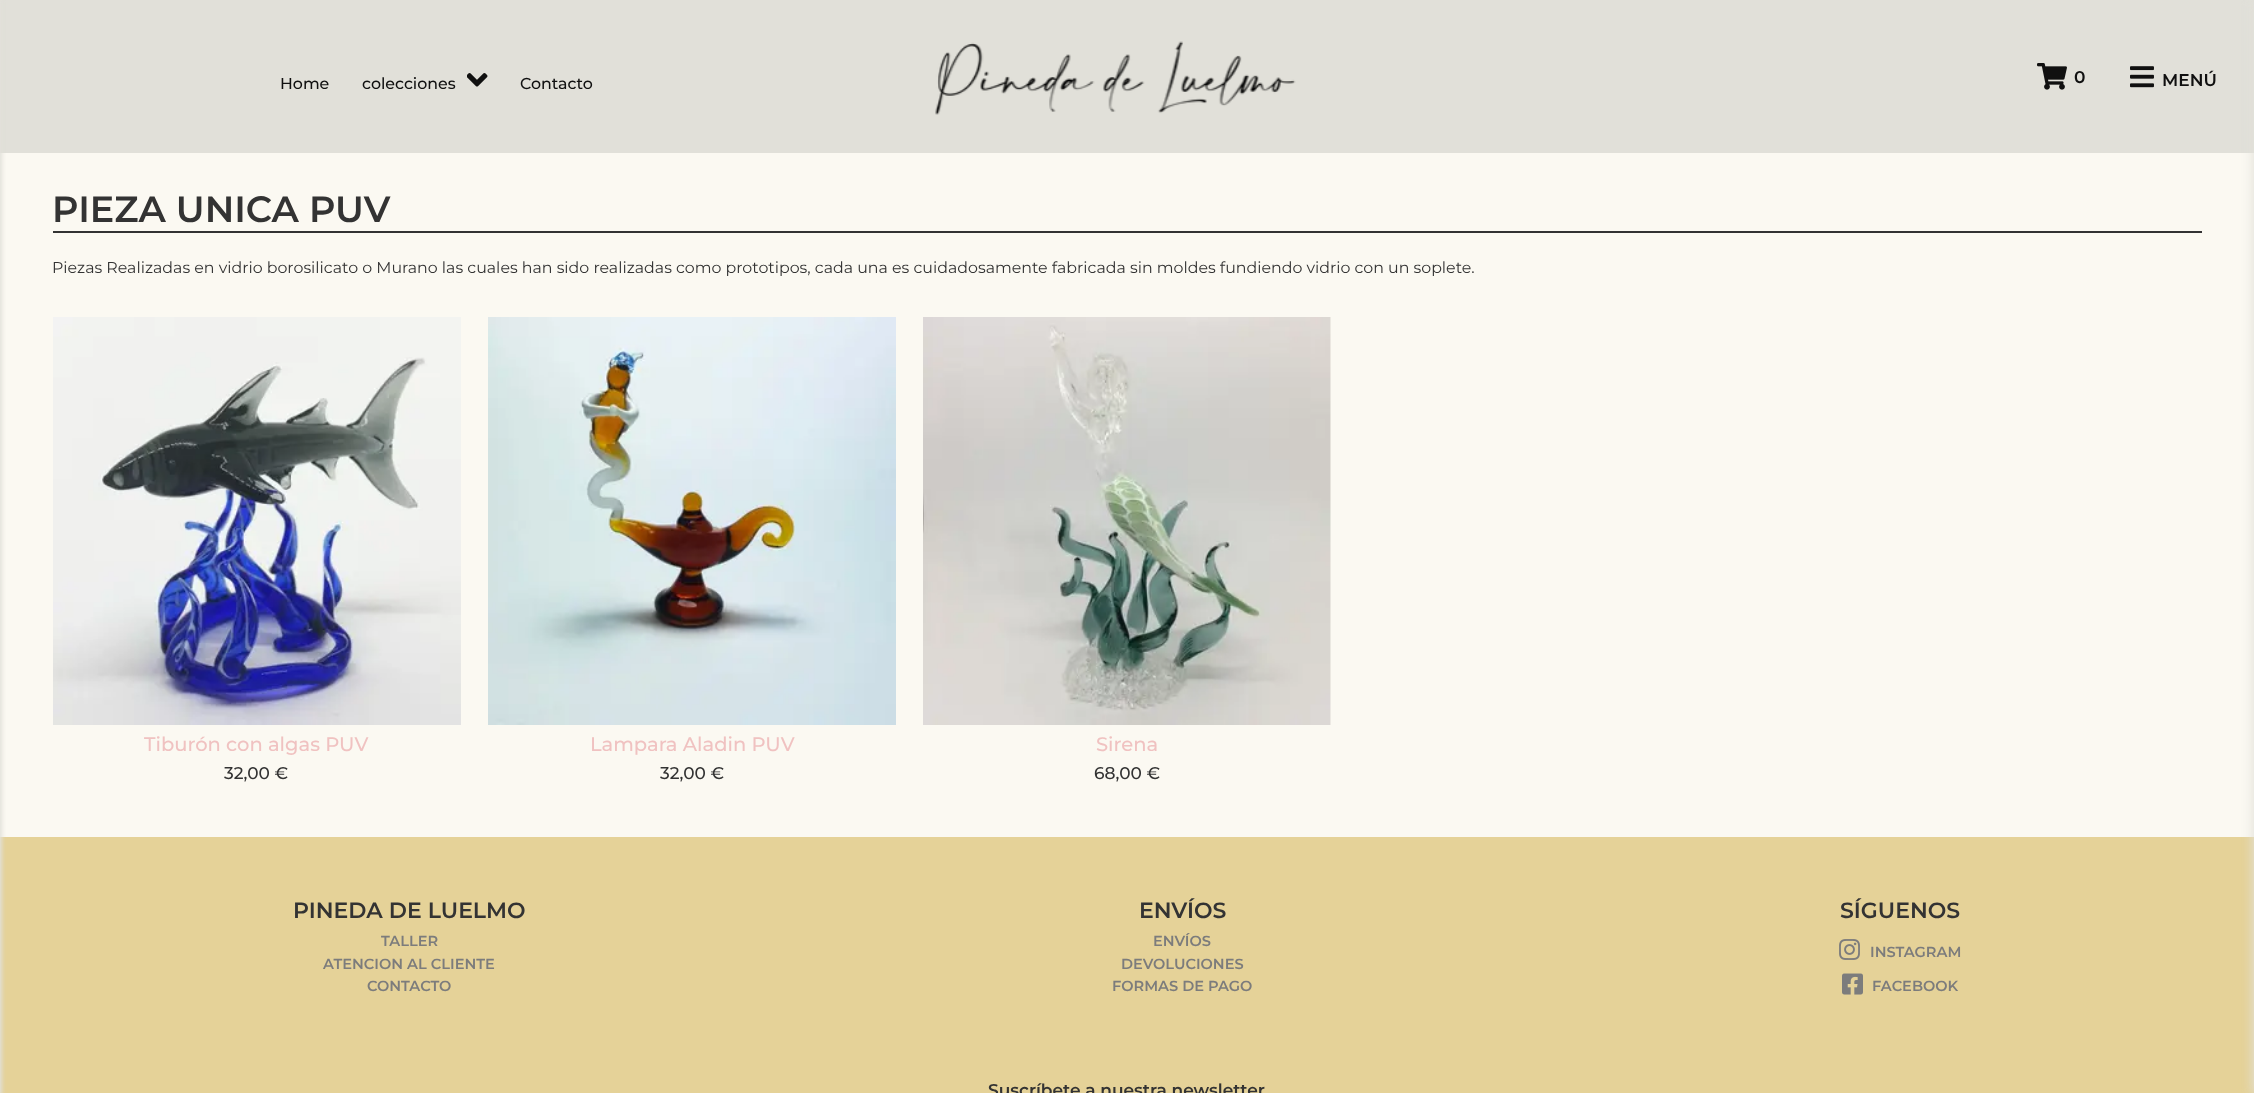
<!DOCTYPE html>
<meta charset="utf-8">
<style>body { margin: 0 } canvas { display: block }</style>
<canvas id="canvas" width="2254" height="1093"></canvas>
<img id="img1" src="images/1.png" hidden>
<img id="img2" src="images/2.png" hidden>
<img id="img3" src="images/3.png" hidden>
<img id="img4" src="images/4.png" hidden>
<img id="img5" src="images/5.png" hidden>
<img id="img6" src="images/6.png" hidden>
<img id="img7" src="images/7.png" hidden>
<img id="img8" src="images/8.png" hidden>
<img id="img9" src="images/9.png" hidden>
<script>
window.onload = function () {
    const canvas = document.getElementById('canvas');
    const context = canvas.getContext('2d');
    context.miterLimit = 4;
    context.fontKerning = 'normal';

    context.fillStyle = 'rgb(251, 249, 242)';
    context.fillRect(0, 0, 2254, 1093);
    context.fillStyle = 'rgb(225, 224, 217)';
    context.fillRect(0, 0, 2254, 153);
    context.fillStyle = 'rgb(229, 210, 152)';
    context.fillRect(0, 837, 2254, 256);
    context.fillStyle = 'rgb(225, 224, 217)';
    context.filter = 'blur(2px)';
    context.beginPath();
    context.rect(-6, -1, 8, 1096);
    context.fill();
    context.filter = 'none';
    context.drawImage(document.getElementById('img1'), 467, 73, 21, 14);
    context.drawImage(document.getElementById('img2'), 935, 41, 361, 74);
    context.drawImage(document.getElementById('img3'), 2037, 63, 30, 27);
    context.drawImage(document.getElementById('img4'), 2130, 66, 24, 22);
    context.filter = 'blur(6px)';
    context.beginPath();
    context.rect(2253, -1, 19, 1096);
    context.fill();
    context.filter = 'none';
    context.fillStyle = 'rgb(51, 51, 51)';
    context.fillRect(53, 231, 2149, 2);
    context.drawImage(document.getElementById('img5'), 53, 317, 408, 408);
    context.drawImage(document.getElementById('img6'), 488, 317, 408, 408);
    context.drawImage(document.getElementById('img7'), 923, 317, 408, 408);
    context.drawImage(document.getElementById('img8'), 1839, 939, 21, 21);
    context.drawImage(document.getElementById('img9'), 1842, 973, 21, 22);
    context.font = '500 15.82px Montserrat';
    context.fillStyle = 'rgb(16, 16, 16)';
    context.fillText('Home', 280, 89);
    context.fillText('colecciones', 362, 89);
    context.fillText('Contacto', 520, 89);
    context.font = '600 17px Montserrat';
    context.fillText('0', 2074, 83);
    context.fillText('MENÚ', 2162, 86);
    context.font = '600 36.5px Montserrat';
    context.fillStyle = 'rgb(51, 51, 51)';
    context.fillText('PIEZA UNICA PUV', 52, 222);
    context.font = '15.82px Montserrat';
    context.fillText('Piezas Realizadas en vidrio borosilicato o Murano las cuales han sido realizadas como prototipos, cada una es cuidadosamente fabricada sin moldes fundiendo vidrio con un soplete.', 52, 273);
    context.font = '500 19.5px Montserrat';
    context.fillStyle = 'rgb(240, 194, 193)';
    context.fillText('Tiburón con algas PUV', 144, 751);
    context.font = '500 17px Montserrat';
    context.fillStyle = 'rgb(51, 51, 51)';
    context.fillText('32,00 €', 224, 779);
    context.font = '500 19.5px Montserrat';
    context.fillStyle = 'rgb(240, 194, 193)';
    context.fillText('Lampara Aladin PUV', 590, 751);
    context.font = '500 17px Montserrat';
    context.fillStyle = 'rgb(51, 51, 51)';
    context.fillText('32,00 €', 660, 779);
    context.font = '500 19.5px Montserrat';
    context.fillStyle = 'rgb(240, 194, 193)';
    context.fillText('Sirena', 1096, 751);
    context.font = '500 17px Montserrat';
    context.fillStyle = 'rgb(51, 51, 51)';
    context.fillText('68,00 €', 1094, 779);
    context.font = '600 22px Montserrat';
    context.fillText('PINEDA DE LUELMO', 293, 918);
    context.font = '600 14.6px Montserrat';
    context.fillStyle = 'rgb(124, 124, 124)';
    context.fillText('TALLER', 381, 946);
    context.fillText('ATENCION AL CLIENTE', 323, 969);
    context.fillText('CONTACTO', 367, 991);
    context.font = '600 22px Montserrat';
    context.fillStyle = 'rgb(51, 51, 51)';
    context.fillText('ENVÍOS', 1139, 918);
    context.font = '600 14.6px Montserrat';
    context.fillStyle = 'rgb(124, 124, 124)';
    context.fillText('ENVÍOS', 1153, 946);
    context.fillText('DEVOLUCIONES', 1121, 969);
    context.fillText('FORMAS DE PAGO', 1112, 991);
    context.font = '600 22px Montserrat';
    context.fillStyle = 'rgb(51, 51, 51)';
    context.fillText('SÍGUENOS', 1840, 918);
    context.font = '600 14.6px Montserrat';
    context.fillStyle = 'rgb(124, 124, 124)';
    context.fillText('INSTAGRAM', 1870, 957);
    context.fillText('FACEBOOK', 1872, 991);
    context.font = '600 17px Montserrat';
    context.fillStyle = 'rgb(51, 51, 51)';
    context.fillText('Suscríbete a nuestra newsletter', 988, 1096);
};
</script>
